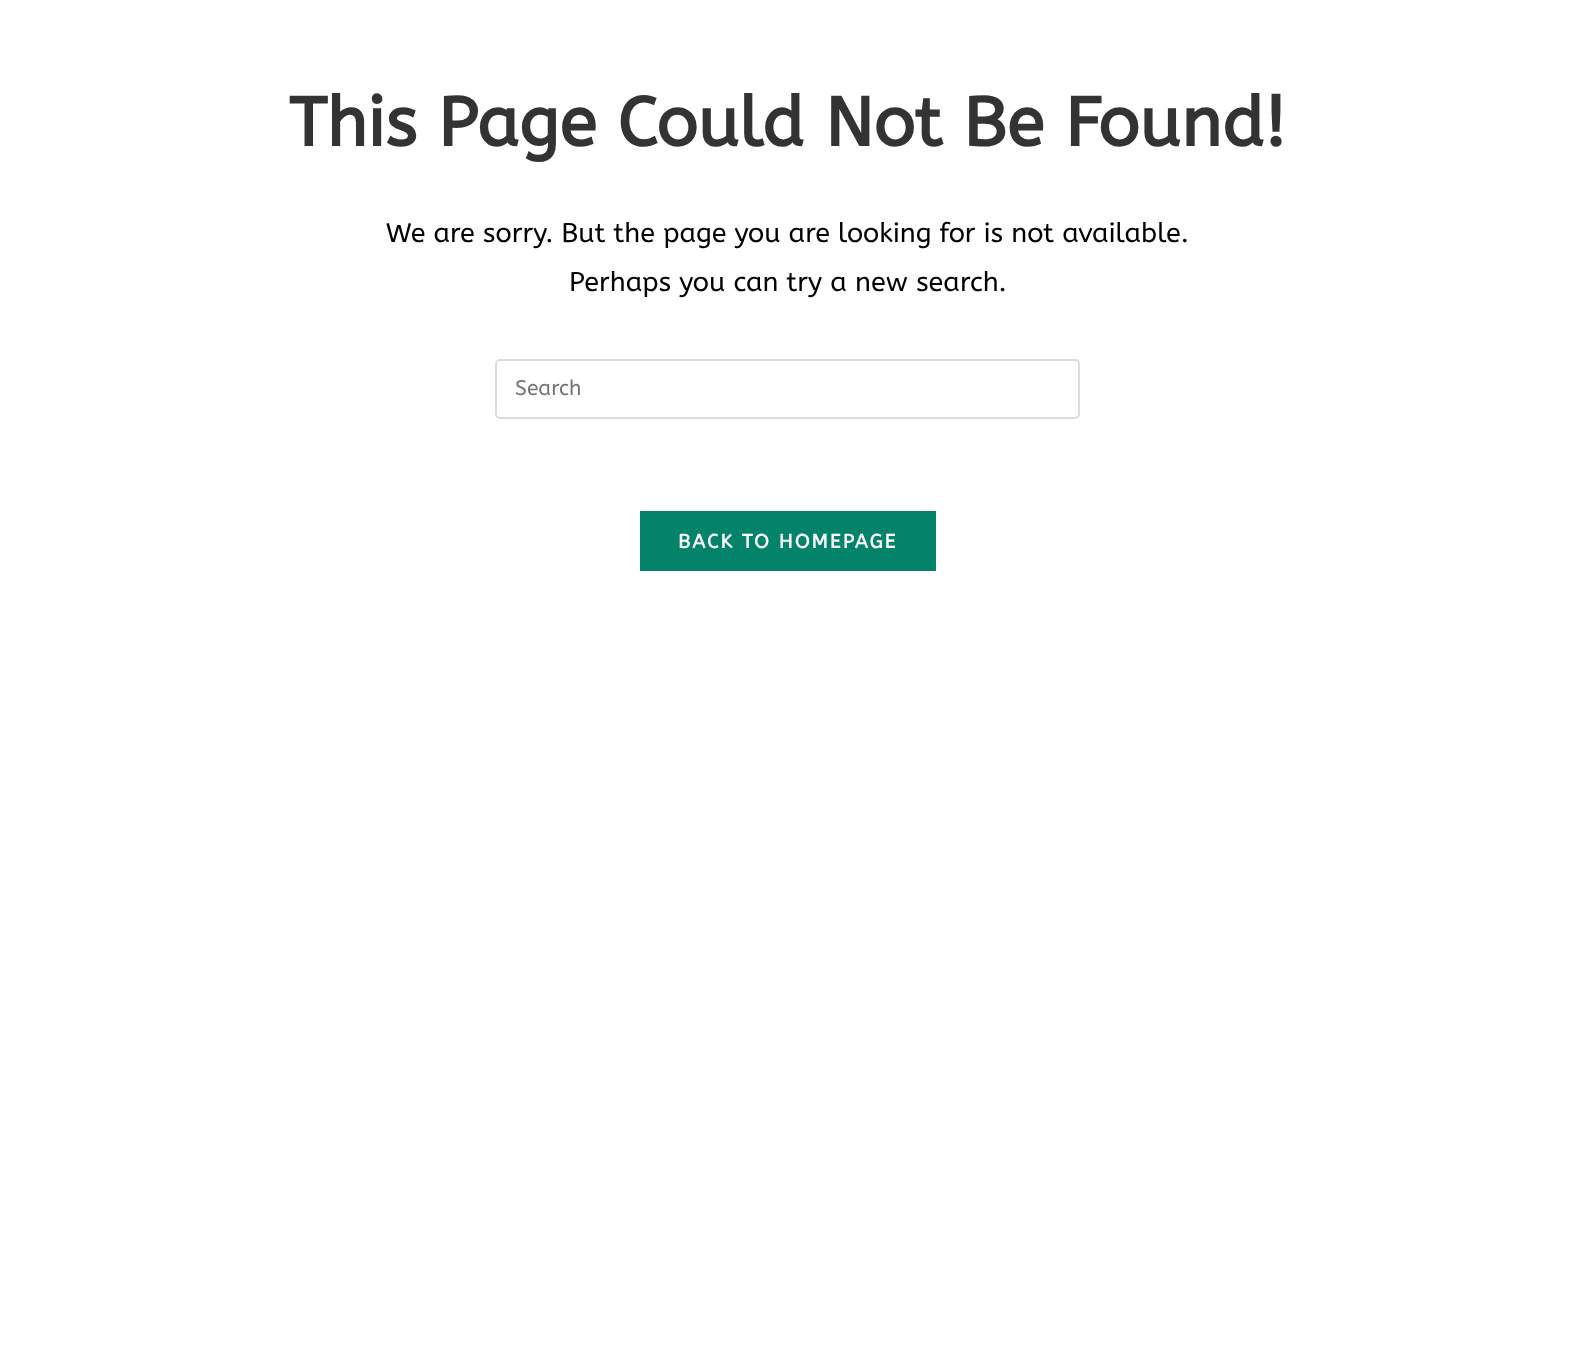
<!DOCTYPE html>
<meta charset="utf-8">
<style>body { margin: 0 } canvas { display: block }</style>
<canvas id="canvas" width="1574" height="1369"></canvas>
<script>
window.onload = function () {
    const canvas = document.getElementById('canvas');
    const context = canvas.getContext('2d');
    context.miterLimit = 4;
    context.fontKerning = 'normal';

    context.fillStyle = 'rgb(255, 255, 255)';
    context.fillRect(0, 0, 1574, 1369);
    context.beginPath();
    context.roundRect(496, 360, 583, 58, 4);
    context.strokeStyle = 'rgb(221, 221, 221)';
    context.lineWidth = 2;
    context.stroke();
    context.fillStyle = 'rgb(2, 131, 106)';
    context.fillRect(640, 511, 296, 60);
    context.font = 'bold 69px ABeeZee';
    context.fillStyle = 'rgb(51, 51, 51)';
    context.fillText('This Page Could Not Be Found!', 289, 146);
    context.font = '27px ABeeZee';
    context.fillStyle = 'rgb(0, 0, 0)';
    context.fillText('We are sorry. But the page you are looking for is not available.', 386, 242);
    context.fillText('Perhaps you can try a new search.', 569, 291);
    context.font = '21px ABeeZee';
    context.fillStyle = 'rgb(117, 117, 117)';
    context.fillText('Search', 515, 395);
    context.letterSpacing = '2px';
    context.font = 'bold 19.5px ABeeZee';
    context.fillStyle = 'rgb(255, 255, 255)';
    context.fillText('BACK TO HOMEPAGE', 678, 548);
};
</script>
